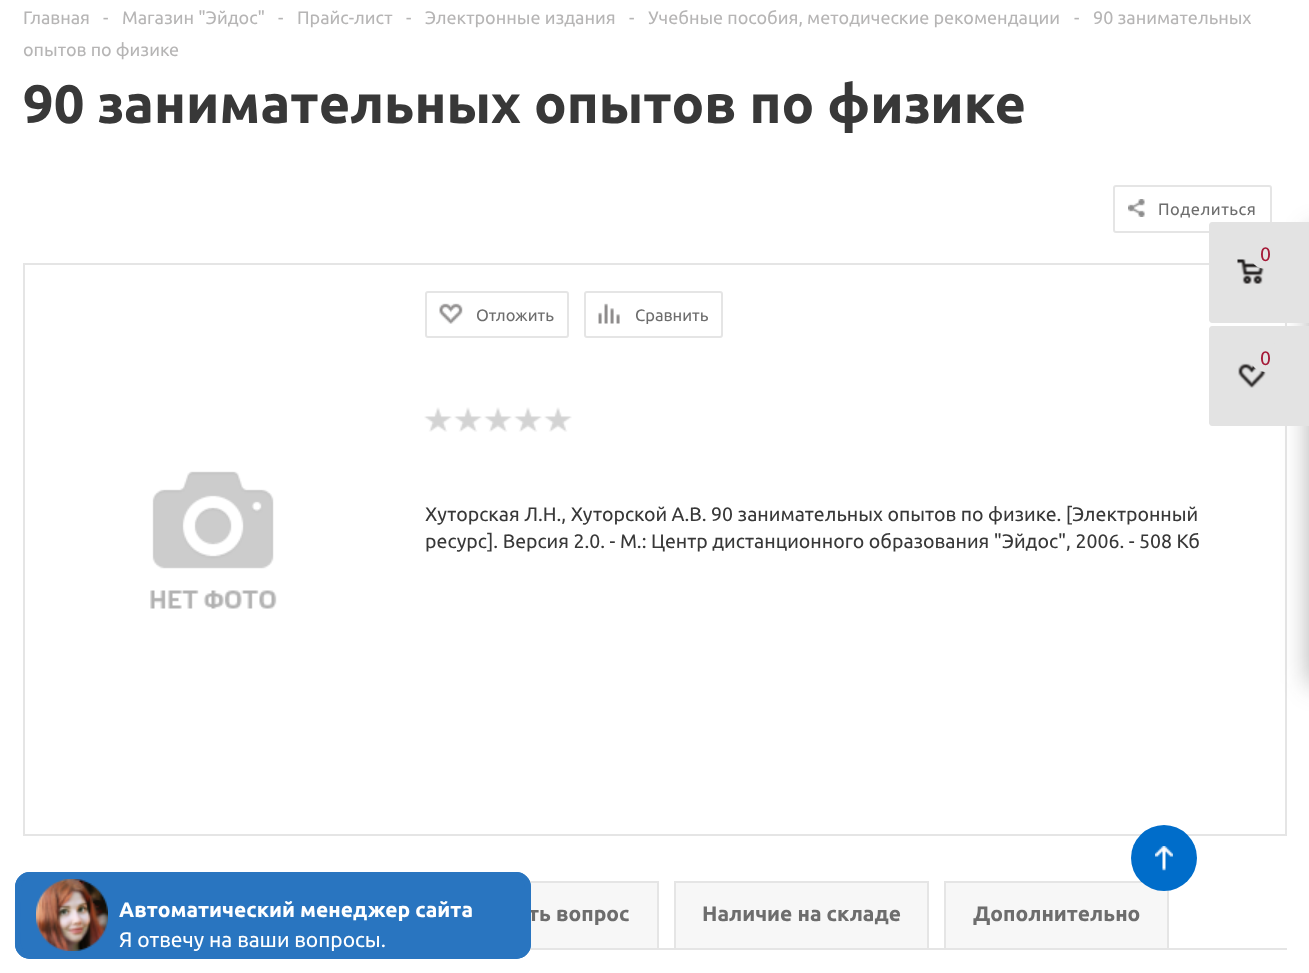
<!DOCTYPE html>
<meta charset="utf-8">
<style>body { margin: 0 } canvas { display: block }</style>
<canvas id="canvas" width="1309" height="973"></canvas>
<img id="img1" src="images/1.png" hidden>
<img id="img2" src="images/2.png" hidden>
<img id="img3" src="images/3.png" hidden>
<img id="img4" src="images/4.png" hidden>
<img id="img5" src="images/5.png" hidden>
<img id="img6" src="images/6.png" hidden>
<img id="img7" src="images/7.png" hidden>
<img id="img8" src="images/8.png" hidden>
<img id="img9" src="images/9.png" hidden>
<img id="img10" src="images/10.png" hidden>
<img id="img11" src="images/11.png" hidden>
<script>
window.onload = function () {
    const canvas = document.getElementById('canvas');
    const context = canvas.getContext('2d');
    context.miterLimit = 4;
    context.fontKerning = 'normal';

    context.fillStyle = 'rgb(255, 255, 255)';
    context.fillRect(0, 0, 1309, 973);
    context.beginPath();
    context.roundRect(1114, 186, 157, 46, 2);
    context.strokeStyle = 'rgb(229, 229, 229)';
    context.lineWidth = 2;
    context.stroke();
    context.drawImage(document.getElementById('img1'), 1128, 199, 17, 18);
    context.strokeRect(24, 264, 1262, 571);
    context.drawImage(document.getElementById('img2'), 150, 471, 127, 138);
    context.beginPath();
    context.roundRect(426, 292, 142, 45, 2);
    context.stroke();
    context.drawImage(document.getElementById('img3'), 439, 303, 24, 21);
    context.beginPath();
    context.roundRect(585, 292, 137, 45, 2);
    context.stroke();
    context.drawImage(document.getElementById('img4'), 598, 303, 22, 21);
    context.drawImage(document.getElementById('img5'), 424, 407, 28, 25);
    context.drawImage(document.getElementById('img6'), 454, 407, 28, 25);
    context.drawImage(document.getElementById('img6'), 484, 407, 28, 25);
    context.drawImage(document.getElementById('img7'), 514, 407, 28, 25);
    context.drawImage(document.getElementById('img5'), 544, 407, 28, 25);
    context.fillStyle = 'rgb(247, 247, 247)';
    context.fillRect(530, 883, 127, 65);
    context.save();
    context.beginPath();
    context.rect(23, 866, 1264, 84);
    context.clip();
    context.strokeRect(451, 882, 207, 68);
    context.restore();
    context.fillRect(676, 883, 251, 65);
    context.save();
    context.beginPath();
    context.rect(23, 866, 1264, 84);
    context.clip();
    context.strokeRect(675, 882, 253, 68);
    context.restore();
    context.fillRect(946, 883, 221, 65);
    context.save();
    context.beginPath();
    context.rect(23, 866, 1264, 84);
    context.clip();
    context.strokeRect(945, 882, 223, 68);
    context.restore();
    context.fillStyle = 'rgb(229, 229, 229)';
    context.fillRect(529, 948, 758, 2);
    context.fillStyle = 'rgba(44, 44, 44, 0.4)';
    context.filter = 'blur(13.5px)';
    context.beginPath();
    context.roundRect(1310, 231, 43, 453, 3);
    context.fill();
    context.filter = 'none';
    context.fillStyle = 'rgb(227, 227, 227)';
    context.beginPath();
    context.moveTo(1212, 222);
    context.lineTo(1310, 222);
    context.lineTo(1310, 323);
    context.lineTo(1212, 323);
    context.bezierCurveTo(1210.5, 323, 1209, 321.5, 1209, 320);
    context.lineTo(1209, 225);
    context.bezierCurveTo(1209, 223.5, 1210.5, 222, 1212, 222);
    context.closePath();
    context.fill();
    context.drawImage(document.getElementById('img8'), 1237, 259, 27, 25);
    context.beginPath();
    context.roundRect(1250, 239, 33, 30, 15);
    context.fill();
    context.beginPath();
    context.moveTo(1212, 326);
    context.lineTo(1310, 326);
    context.lineTo(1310, 426);
    context.lineTo(1212, 426);
    context.bezierCurveTo(1210.5, 426, 1209, 424.5, 1209, 423);
    context.lineTo(1209, 329);
    context.bezierCurveTo(1209, 327.5, 1210.5, 326, 1212, 326);
    context.closePath();
    context.fill();
    context.drawImage(document.getElementById('img9'), 1238, 363, 28, 25);
    context.beginPath();
    context.roundRect(1250, 342, 33, 30, 15);
    context.fill();
    context.fillStyle = 'rgb(0, 109, 202)';
    context.beginPath();
    context.arc(1164, 858, 33, 0, 2 * Math.PI);
    context.fill();
    context.drawImage(document.getElementById('img10'), 1155, 846, 18, 25);
    context.font = '18px Ubuntu';
    context.fillStyle = 'rgb(182, 181, 181)';
    context.fillText('Главная', 23, 24);
    context.fillText('-', 103, 24);
    context.fillText('Магазин "Эйдос"', 122, 24);
    context.fillText('-', 278, 24);
    context.fillText('Прайс-лист', 297, 24);
    context.fillText('-', 406, 24);
    context.fillText('Электронные издания', 425, 24);
    context.fillText('-', 629, 24);
    context.fillText('Учебные пособия, методические рекомендации', 648, 24);
    context.fillText('-', 1074, 24);
    context.fillText('90 занимательных', 1093, 24);
    context.fillText('опытов по физике', 23, 56);
    context.font = 'bold 54px Ubuntu';
    context.fillStyle = 'rgb(56, 56, 56)';
    context.fillText('90 занимательных опытов по физике', 23, 123);
    context.letterSpacing = '0.5px';
    context.font = '16.5px Ubuntu';
    context.fillStyle = 'rgb(109, 109, 109)';
    context.fillText('Поделиться', 1158, 215);
    context.letterSpacing = '0px';
    context.fillText('Отложить', 476, 321);
    context.fillText('Сравнить', 635, 321);
    context.font = '19.5px Ubuntu';
    context.fillStyle = 'rgb(56, 56, 56)';
    context.fillText('Хуторская Л.Н., Хуторской А.В. 90 занимательных опытов по физике. [Электронный', 425, 521);
    context.fillText('ресурс]. Версия 2.0. - М.: Центр дистанционного образования "Эйдос", 2006. - 508 Кб', 425, 548);
    context.font = 'bold 21px Ubuntu';
    context.fillStyle = 'rgb(109, 109, 109)';
    context.fillText('ть вопрос', 528, 921);
    context.fillText('Наличие на складе', 702, 921);
    context.fillText('Дополнительно', 973, 921);
    context.font = '19.5px Ubuntu';
    context.fillStyle = 'rgb(165, 25, 55)';
    context.fillText('0', 1260, 261);
    context.fillText('0', 1260, 365);
    context.beginPath();
    context.roundRect(18, 875, 510, 81, 12);
    context.strokeStyle = 'rgb(41, 117, 192)';
    context.lineWidth = 6;
    context.stroke();
    context.fillStyle = 'rgb(41, 117, 192)';
    context.beginPath();
    context.roundRect(18, 875, 510, 81, 12);
    context.fill();
    context.stroke();
    context.drawImage(document.getElementById('img11'), 36, 879, 72, 72);
    context.font = 'bold 21px Ubuntu';
    context.fillStyle = 'rgb(255, 255, 255)';
    context.fillText('Автоматический менеджер сайта', 119, 917);
    context.font = '21px Ubuntu';
    context.fillText('Я отвечу на ваши вопросы.', 119, 947);
};
</script>
